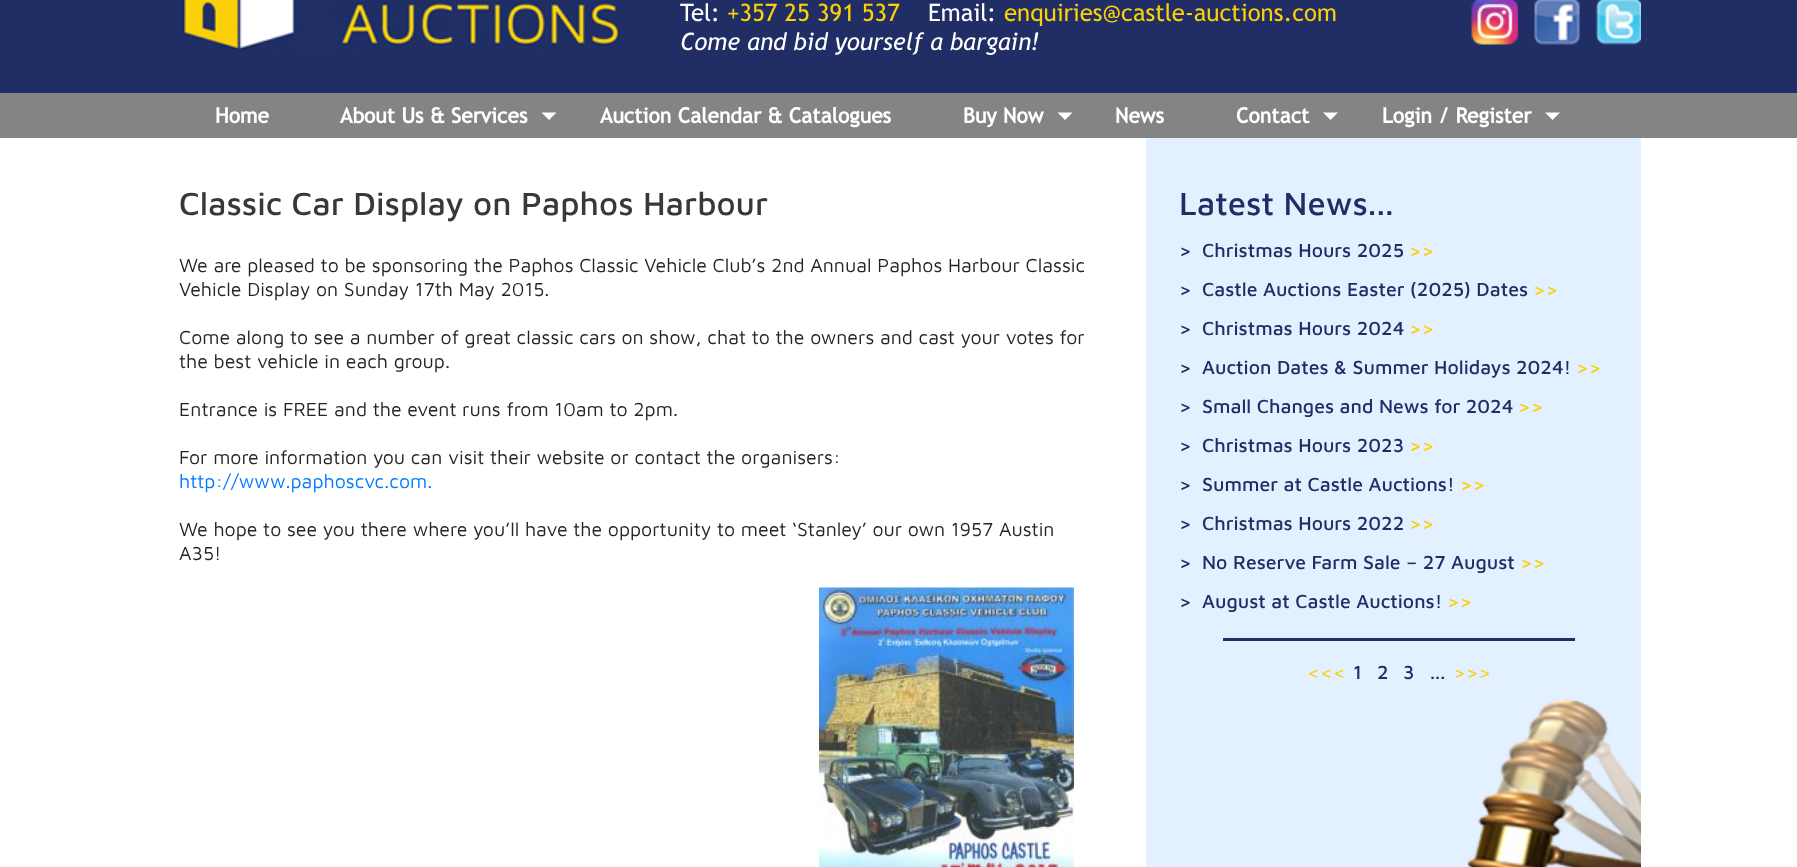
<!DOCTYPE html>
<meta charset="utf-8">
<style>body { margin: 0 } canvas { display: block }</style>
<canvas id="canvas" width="1797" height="867"></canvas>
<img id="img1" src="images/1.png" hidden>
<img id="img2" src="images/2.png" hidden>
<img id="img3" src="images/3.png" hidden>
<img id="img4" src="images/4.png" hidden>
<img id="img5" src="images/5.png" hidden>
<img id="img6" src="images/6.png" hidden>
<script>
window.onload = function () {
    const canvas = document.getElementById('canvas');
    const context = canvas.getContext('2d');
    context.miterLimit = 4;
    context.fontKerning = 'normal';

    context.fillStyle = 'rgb(33, 46, 101)';
    context.fillRect(0, 0, 1797, 867);
    context.drawImage(document.getElementById('img1'), 179, 0, 442, 51);
    context.drawImage(document.getElementById('img2'), 1471, 0, 47, 45);
    context.drawImage(document.getElementById('img3'), 1534, 0, 46, 45);
    context.drawImage(document.getElementById('img4'), 1596, 0, 45, 45);
    context.fillStyle = 'rgb(132, 132, 132)';
    context.fillRect(0, 93, 1797, 45);
    context.fillStyle = 'rgb(255, 255, 255)';
    context.beginPath();
    context.moveTo(541.5, 112.5);
    context.lineTo(556.5, 112.5);
    context.lineTo(549, 120);
    context.closePath();
    context.fill();
    context.beginPath();
    context.moveTo(1057.5, 112.5);
    context.lineTo(1072.5, 112.5);
    context.lineTo(1065, 120);
    context.closePath();
    context.fill();
    context.beginPath();
    context.moveTo(1323, 112.5);
    context.lineTo(1338, 112.5);
    context.lineTo(1330.5, 120);
    context.closePath();
    context.fill();
    context.beginPath();
    context.moveTo(1545, 112.5);
    context.lineTo(1560, 112.5);
    context.lineTo(1552.5, 120);
    context.closePath();
    context.fill();
    context.fillRect(0, 138, 1797, 729);
    context.drawImage(document.getElementById('img5'), 819, 587, 255, 280);
    context.fillStyle = 'rgb(226, 240, 255)';
    context.fillRect(1146, 138, 495, 729);
    context.drawImage(document.getElementById('img6'), 1466, 698, 175, 169);
    context.fillStyle = 'rgb(32, 46, 101)';
    context.fillRect(1223, 638, 352, 3);
    context.font = '24px Trebuchet MS';
    context.fillStyle = 'rgb(255, 255, 255)';
    context.fillText('Tel:', 680, 21);
    context.fillStyle = 'rgb(251, 208, 8)';
    context.fillText('+357 25 391 537', 727, 21);
    context.fillStyle = 'rgb(255, 255, 255)';
    context.fillText('Email:', 928, 21);
    context.fillStyle = 'rgb(251, 208, 8)';
    context.fillText('enquiries@castle-auctions.com', 1004, 21);
    context.font = 'italic 24px Trebuchet MS';
    context.fillStyle = 'rgb(255, 255, 255)';
    context.fillText('Come and bid yourself a bargain!', 680, 50);
    context.font = 'bold 21px Trebuchet MS';
    context.fillText('Home', 215, 123);
    context.fillText('About Us & Services', 340, 123);
    context.fillText('Auction Calendar & Catalogues', 600, 123);
    context.fillText('Buy Now', 963, 123);
    context.fillText('News', 1115, 123);
    context.fillText('Contact', 1236, 123);
    context.fillText('Login / Register', 1382, 123);
    context.font = '500 33px Maven Pro';
    context.fillStyle = 'rgb(56, 56, 56)';
    context.fillText('Classic Car Display on Paphos Harbour', 179, 215);
    context.font = '19.5px Maven Pro';
    context.fillStyle = 'rgb(33, 37, 41)';
    context.fillText('We are pleased to be sponsoring the Paphos Classic Vehicle Club’s 2nd Annual Paphos Harbour Classic', 179, 272);
    context.fillText('Vehicle Display on Sunday 17th May 2015.', 179, 296);
    context.fillText('Come along to see a number of great classic cars on show, chat to the owners and cast your votes for', 179, 344);
    context.fillText('the best vehicle in each group.', 179, 368);
    context.fillText('Entrance is FREE and the event runs from 10am to 2pm.', 179, 416);
    context.fillText('For more information you can visit their website or contact the organisers:', 179, 464);
    context.fillStyle = 'rgb(0, 123, 255)';
    context.fillText('http://www.paphoscvc.com.', 179, 488);
    context.fillStyle = 'rgb(33, 37, 41)';
    context.fillText('We hope to see you there where you’ll have the opportunity to meet ‘Stanley’ our own 1957 Austin', 179, 536);
    context.fillText('A35!', 179, 560);
    context.font = '500 33px Maven Pro';
    context.fillStyle = 'rgb(32, 46, 101)';
    context.fillText('Latest News...', 1179, 215);
    context.font = '500 19.5px Maven Pro';
    context.fillText('>', 1179, 257);
    context.fillText('Christmas Hours 2025', 1202, 257);
    context.fillStyle = 'rgb(251, 208, 8)';
    context.fillText('>>', 1409, 257);
    context.fillStyle = 'rgb(32, 46, 101)';
    context.fillText('>', 1179, 296);
    context.fillText('Castle Auctions Easter (2025) Dates', 1202, 296);
    context.fillStyle = 'rgb(251, 208, 8)';
    context.fillText('>>', 1533, 296);
    context.fillStyle = 'rgb(32, 46, 101)';
    context.fillText('>', 1179, 335);
    context.fillText('Christmas Hours 2024', 1202, 335);
    context.fillStyle = 'rgb(251, 208, 8)';
    context.fillText('>>', 1409, 335);
    context.fillStyle = 'rgb(32, 46, 101)';
    context.fillText('>', 1179, 374);
    context.fillText('Auction Dates & Summer Holidays 2024!', 1202, 374);
    context.fillStyle = 'rgb(251, 208, 8)';
    context.fillText('>>', 1576, 374);
    context.fillStyle = 'rgb(32, 46, 101)';
    context.fillText('>', 1179, 413);
    context.fillText('Small Changes and News for 2024', 1202, 413);
    context.fillStyle = 'rgb(251, 208, 8)';
    context.fillText('>>', 1518, 413);
    context.fillStyle = 'rgb(32, 46, 101)';
    context.fillText('>', 1179, 452);
    context.fillText('Christmas Hours 2023', 1202, 452);
    context.fillStyle = 'rgb(251, 208, 8)';
    context.fillText('>>', 1409, 452);
    context.fillStyle = 'rgb(32, 46, 101)';
    context.fillText('>', 1179, 491);
    context.fillText('Summer at Castle Auctions!', 1202, 491);
    context.fillStyle = 'rgb(251, 208, 8)';
    context.fillText('>>', 1460, 491);
    context.fillStyle = 'rgb(32, 46, 101)';
    context.fillText('>', 1179, 530);
    context.fillText('Christmas Hours 2022', 1202, 530);
    context.fillStyle = 'rgb(251, 208, 8)';
    context.fillText('>>', 1409, 530);
    context.fillStyle = 'rgb(32, 46, 101)';
    context.fillText('>', 1179, 569);
    context.fillText('No Reserve Farm Sale – 27 August', 1202, 569);
    context.fillStyle = 'rgb(251, 208, 8)';
    context.fillText('>>', 1520, 569);
    context.fillStyle = 'rgb(32, 46, 101)';
    context.fillText('>', 1179, 608);
    context.fillText('August at Castle Auctions!', 1202, 608);
    context.fillStyle = 'rgb(251, 208, 8)';
    context.fillText('>>', 1447, 608);
    context.font = '19.5px Maven Pro';
    context.fillText('<<<', 1307, 679);
    context.font = '500 19.5px Maven Pro';
    context.fillStyle = 'rgb(32, 46, 101)';
    context.fillText('1', 1353, 679);
    context.fillText('2', 1377, 679);
    context.fillText('3', 1403, 679);
    context.fillText('...', 1430, 679);
    context.font = '19.5px Maven Pro';
    context.fillStyle = 'rgb(251, 208, 8)';
    context.fillText('>>>', 1453, 679);
};
</script>
